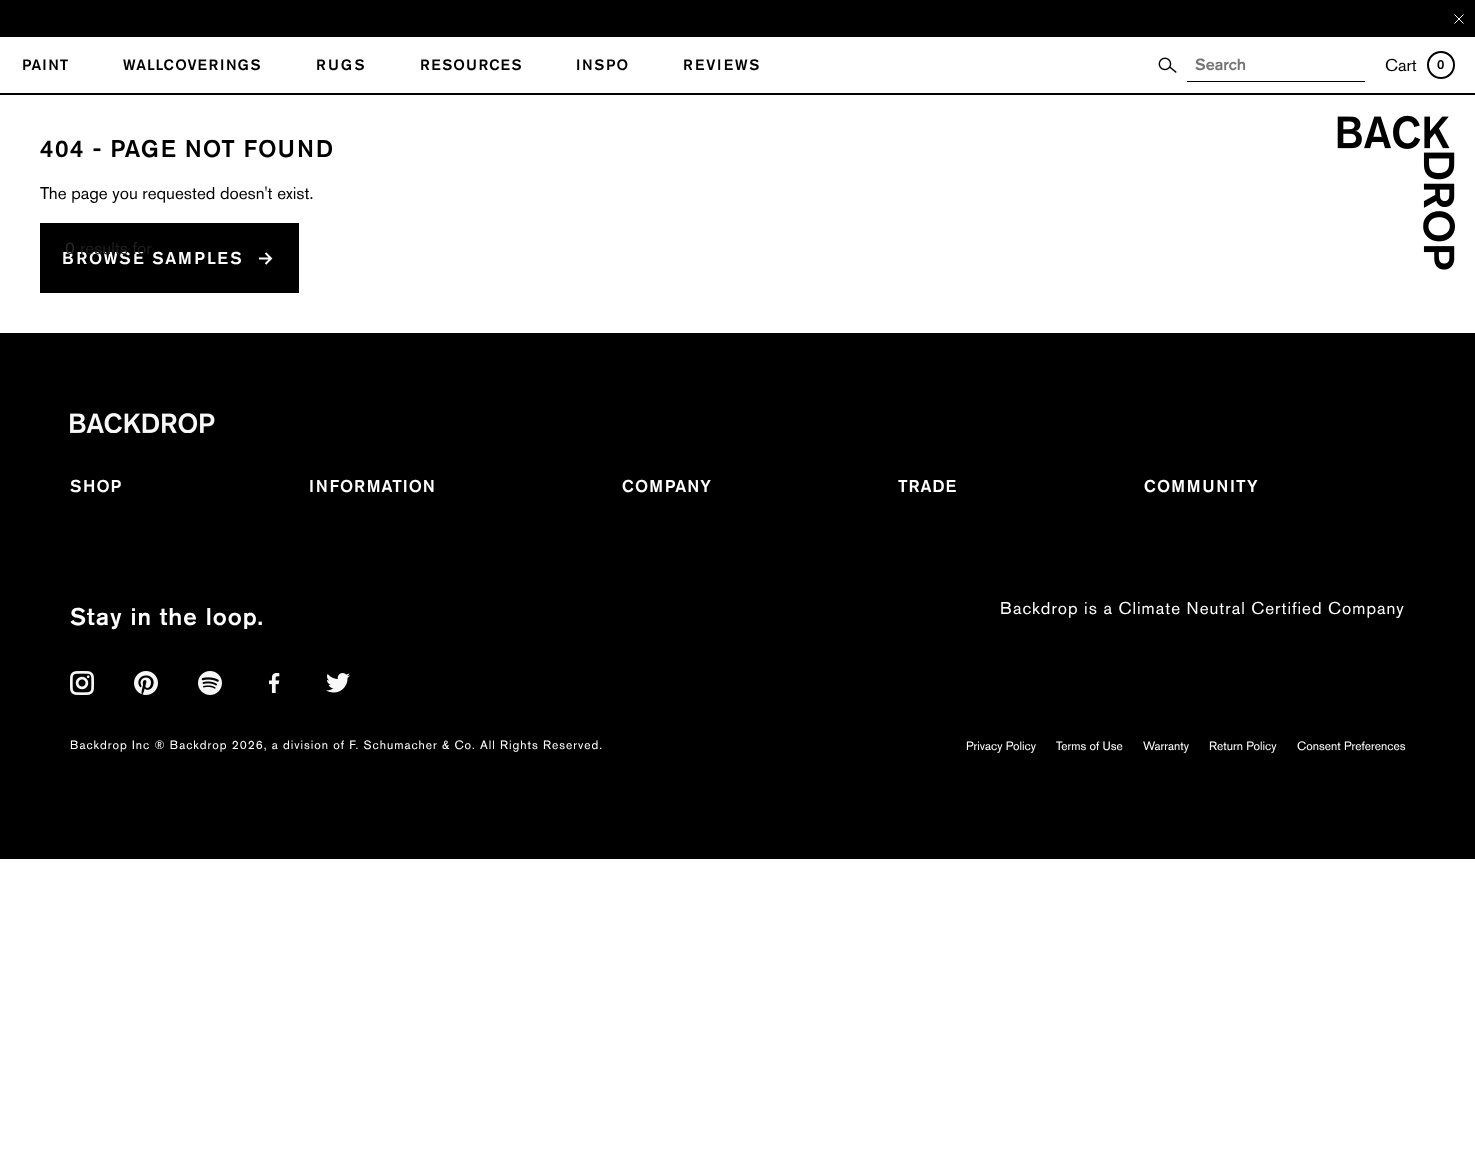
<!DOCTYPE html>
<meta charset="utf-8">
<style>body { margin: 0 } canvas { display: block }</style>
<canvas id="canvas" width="1475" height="1165"></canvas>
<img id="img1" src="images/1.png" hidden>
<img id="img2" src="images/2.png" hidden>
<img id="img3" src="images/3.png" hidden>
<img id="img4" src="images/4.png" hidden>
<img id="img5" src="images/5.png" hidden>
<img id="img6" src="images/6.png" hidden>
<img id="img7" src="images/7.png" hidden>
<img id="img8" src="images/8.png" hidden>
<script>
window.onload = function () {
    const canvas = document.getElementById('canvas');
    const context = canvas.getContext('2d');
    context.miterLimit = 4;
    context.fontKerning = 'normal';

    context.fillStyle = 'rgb(255, 255, 255)';
    context.fillRect(0, 0, 1475, 1165);
    context.fillStyle = 'rgb(0, 0, 0)';
    context.fillRect(0, 0, 1475, 37);
    context.beginPath();
    context.moveTo(1454.5, 14.5);
    context.lineTo(1463.5, 23.5);
    context.moveTo(1454.5, 23.5);
    context.lineTo(1463.5, 14.5);
    context.strokeStyle = 'rgb(255, 255, 255)';
    context.stroke();
    context.fillRect(0, 93, 1475, 2);
    context.drawImage(document.getElementById('img1'), 1158, 57, 19, 16);
    context.fillRect(1187, 81, 178, 1);
    context.beginPath();
    context.arc(1441, 65, 13, 0, 2 * Math.PI);
    context.strokeStyle = 'rgb(0, 0, 0)';
    context.lineWidth = 2;
    context.stroke();
    context.fillRect(40, 223, 259, 70);
    context.beginPath();
    context.moveTo(259, 258.5);
    context.lineTo(271, 258.5);
    context.moveTo(265.5, 253);
    context.lineTo(271, 258.5);
    context.lineTo(265.5, 264);
    context.strokeStyle = 'rgb(255, 255, 255)';
    context.stroke();
    context.drawImage(document.getElementById('img2'), 1337, 115, 118, 155);
    context.fillRect(0, 333, 1475, 526);
    context.drawImage(document.getElementById('img3'), 70, 413, 145, 20);
    context.drawImage(document.getElementById('img4'), 70, 671, 24, 24);
    context.drawImage(document.getElementById('img5'), 134, 671, 24, 24);
    context.drawImage(document.getElementById('img6'), 198, 671, 24, 24);
    context.drawImage(document.getElementById('img7'), 269, 673, 11, 20);
    context.drawImage(document.getElementById('img8'), 326, 673, 24, 20);
    context.letterSpacing = '1px';
    context.font = '500 15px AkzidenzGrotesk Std';
    context.fillText('PAINT', 22, 70);
    context.fillText('WALLCOVERINGS', 123, 70);
    context.letterSpacing = '1.75px';
    context.fillText('RUGS', 316, 70);
    context.letterSpacing = '1px';
    context.fillText('RESOURCES', 420, 70);
    context.fillText('INSPO', 576, 70);
    context.letterSpacing = '1.75px';
    context.fillText('REVIEWS', 683, 70);
    context.letterSpacing = '0px';
    context.font = '500 16px AkzidenzGrotesk Std';
    context.fillStyle = 'rgb(117, 117, 117)';
    context.fillText('Search', 1195, 70);
    context.font = '17px AkzidenzGrotesk Std';
    context.fillStyle = 'rgb(0, 0, 0)';
    context.fillText('Cart', 1385, 71);
    context.letterSpacing = '1px';
    context.font = '500 13px AkzidenzGrotesk Std';
    context.fillText('0', 1437, 69);
    context.font = '500 24px AkzidenzGrotesk Std';
    context.fillText('404 - PAGE NOT FOUND', 40, 157);
    context.letterSpacing = '0px';
    context.font = '17px AkzidenzGrotesk Std';
    context.fillText('The page you requested doesn\'t exist.', 40, 199);
    context.letterSpacing = '1.75px';
    context.font = '500 17px AkzidenzGrotesk Std';
    context.fillStyle = 'rgb(255, 255, 255)';
    context.fillText('BROWSE SAMPLES', 62, 264);
    context.letterSpacing = '0px';
    context.font = '17px AkzidenzGrotesk Std';
    context.fillStyle = 'rgb(41, 41, 41)';
    context.fillText('0', 65, 254);
    context.fillStyle = 'rgb(31, 31, 31)';
    context.fillText('results for', 80, 254);
    context.letterSpacing = '1px';
    context.font = '500 17px AkzidenzGrotesk Std';
    context.fillStyle = 'rgb(255, 255, 255)';
    context.fillText('SHOP', 70, 492);
    context.fillText('INFORMATION', 309, 492);
    context.fillText('COMPANY', 622, 492);
    context.fillText('TRADE', 898, 492);
    context.fillText('COMMUNITY', 1144, 492);
    context.font = '500 24px AkzidenzGrotesk Std';
    context.fillText('Stay in the loop.', 70, 625);
    context.font = '17px AkzidenzGrotesk Std';
    context.fillText('Backdrop is a Climate Neutral Certified Company', 1000, 614);
    context.font = '12px AkzidenzGrotesk Std';
    context.fillText('Backdrop Inc ® Backdrop 2026, a division of F. Schumacher & Co. All Rights Reserved.', 70, 749);
    context.letterSpacing = '0px';
    context.fillText('Privacy Policy', 966, 750);
    context.fillText('Terms of Use', 1056, 750);
    context.fillText('Warranty', 1143, 750);
    context.fillText('Return Policy', 1209, 750);
    context.fillText('Consent Preferences', 1297, 750);
};
</script>
